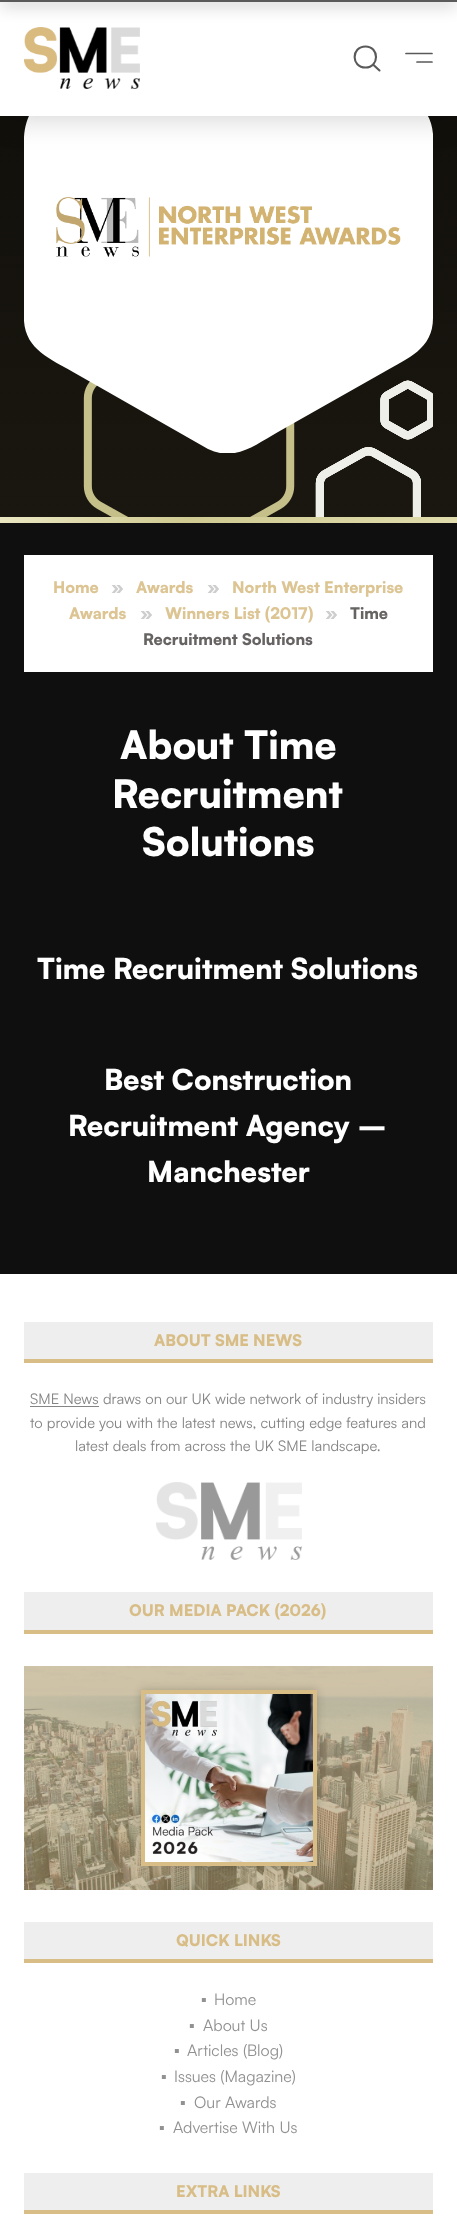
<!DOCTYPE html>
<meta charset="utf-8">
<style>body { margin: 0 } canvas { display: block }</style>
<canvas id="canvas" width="457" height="2230"></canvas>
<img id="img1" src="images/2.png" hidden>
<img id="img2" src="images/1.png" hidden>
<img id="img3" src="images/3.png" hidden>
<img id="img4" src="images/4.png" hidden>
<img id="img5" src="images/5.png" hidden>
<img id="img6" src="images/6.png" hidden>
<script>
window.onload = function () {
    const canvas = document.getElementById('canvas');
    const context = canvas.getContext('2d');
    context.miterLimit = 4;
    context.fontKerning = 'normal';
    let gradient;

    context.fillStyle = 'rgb(255, 255, 255)';
    context.fillRect(0, 0, 457, 2230);
    gradient = context.createLinearGradient(228, -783, 229, 517);
    gradient.addColorStop(0, 'rgb(0, 0, 0)');
    gradient.addColorStop(1, 'rgb(26, 23, 16)');
    context.fillStyle = gradient;
    context.fillRect(0, 116, 457, 401);
    context.drawImage(document.getElementById('img1'), 83, 380, 350, 137);
    context.save();
    context.beginPath();
    context.rect(24, 0, 409, 453);
    context.clip();
    context.fillStyle = 'rgb(255, 255, 255)';
    context.beginPath();
    context.moveTo(433, 318);
    context.lineTo(433, 134);
    context.bezierCurveTo(431, 104, 406, 95, 384, 82);
    context.lineTo(278, 22);
    context.bezierCurveTo(254, 8, 233, -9, 206, 7);
    context.lineTo(73, 82);
    context.bezierCurveTo(61, 89, 43, 96, 33, 109);
    context.bezierCurveTo(21, 126, 24, 147, 24, 167);
    context.lineTo(24, 321);
    context.bezierCurveTo(26, 350, 51, 359, 73, 372);
    context.lineTo(208, 449);
    context.bezierCurveTo(235, 462, 255, 445, 278, 432);
    context.lineTo(384, 372);
    context.bezierCurveTo(408, 358, 433, 349, 433, 318);
    context.closePath();
    context.fill();
    context.restore();
    context.drawImage(document.getElementById('img2'), 56, 197, 345, 60);
    context.fillStyle = 'rgba(0, 0, 0, 0.2)';
    context.filter = 'blur(16px)';
    context.beginPath();
    context.rect(0, 0, 457, 116);
    context.fill();
    context.filter = 'none';
    context.fillStyle = 'rgb(255, 255, 255)';
    context.fillRect(0, 2, 457, 114);
    context.drawImage(document.getElementById('img3'), 24, 27, 116, 62);
    context.beginPath();
    context.moveTo(365.5, 67.5);
    context.bezierCurveTo(379.5, 67.5, 379.5, 46.5, 365.5, 46.5);
    context.bezierCurveTo(351, 46.5, 351, 67.5, 365.5, 67.5);
    context.closePath();
    context.moveTo(379.5, 70.5);
    context.lineTo(373, 64.5);
    context.strokeStyle = 'rgb(90, 90, 90)';
    context.lineWidth = 2.1;
    context.lineCap = 'round';
    context.lineJoin = 'round';
    context.stroke();
    context.beginPath();
    context.moveTo(406, 53.5);
    context.lineTo(432, 53.5);
    context.moveTo(417, 62);
    context.lineTo(432, 62);
    context.lineWidth = 1.7;
    context.lineJoin = 'miter';
    context.stroke();
    context.fillStyle = 'rgb(0, 0, 0)';
    context.filter = 'blur(8.5px)';
    context.beginPath();
    context.rect(0, 0, 457, 2);
    context.fill();
    context.filter = 'none';
    context.fillStyle = 'rgb(90, 90, 90)';
    context.fillRect(0, 0, 457, 2);
    gradient = context.createLinearGradient(174, 421, 283, 619);
    gradient.addColorStop(0, 'rgb(235, 231, 195)');
    gradient.addColorStop(0.41, 'rgb(207, 202, 146)');
    gradient.addColorStop(0.99, 'rgb(224, 220, 173)');
    context.fillStyle = gradient;
    context.fillRect(0, 517, 457, 6);
    context.fillStyle = 'rgb(15, 15, 15)';
    context.fillRect(0, 523, 457, 751);
    context.fillStyle = 'rgb(255, 255, 255)';
    context.fillRect(24, 555, 409, 117);
    context.fillStyle = 'rgb(238, 238, 238)';
    context.fillRect(24, 1322, 409, 37);
    context.fillStyle = 'rgb(216, 189, 135)';
    context.fillRect(24, 1359, 409, 4);
    context.fillStyle = 'rgb(133, 133, 133)';
    context.fillRect(30, 1406, 69, 1);
    context.drawImage(document.getElementById('img4'), 156, 1482, 146, 78);
    context.fillStyle = 'rgb(238, 238, 238)';
    context.fillRect(24, 1592, 409, 38);
    context.fillStyle = 'rgb(216, 189, 135)';
    context.fillRect(24, 1630, 409, 4);
    context.drawImage(document.getElementById('img5'), 24, 1666, 409, 224);
    context.fillStyle = 'rgba(0, 0, 0, 0.2)';
    context.filter = 'blur(4px)';
    context.beginPath();
    context.rect(141, 1690, 176, 176);
    context.fill();
    context.filter = 'none';
    context.strokeStyle = 'rgb(216, 189, 135)';
    context.lineWidth = 4;
    context.strokeRect(143, 1692, 172, 172);
    context.drawImage(document.getElementById('img6'), 145, 1694, 168, 168);
    context.fillStyle = 'rgb(238, 238, 238)';
    context.fillRect(24, 1922, 409, 37);
    context.fillStyle = 'rgb(216, 189, 135)';
    context.fillRect(24, 1959, 409, 4);
    context.fillStyle = 'rgb(238, 238, 238)';
    context.fillRect(24, 2173, 409, 37);
    context.fillStyle = 'rgb(216, 189, 135)';
    context.fillRect(24, 2210, 409, 4);
    context.font = '900 16px Satoshi';
    context.fillStyle = 'rgb(220, 196, 147)';
    context.fillText('Home', 53, 593);
    context.fillStyle = 'rgb(206, 206, 206)';
    context.fillText('»', 111, 593);
    context.fillStyle = 'rgb(220, 196, 147)';
    context.fillText('Awards', 136, 593);
    context.fillStyle = 'rgb(206, 206, 206)';
    context.fillText('»', 207, 593);
    context.fillStyle = 'rgb(220, 196, 147)';
    context.fillText('North West Enterprise', 232, 593);
    context.fillText('Awards', 69, 619);
    context.fillStyle = 'rgb(206, 206, 206)';
    context.fillText('»', 140, 619);
    context.fillStyle = 'rgb(220, 196, 147)';
    context.fillText('Winners List (2017)', 165, 619);
    context.fillStyle = 'rgb(206, 206, 206)';
    context.fillText('»', 325, 619);
    context.fillStyle = 'rgb(103, 99, 99)';
    context.fillText('Time', 350, 619);
    context.fillText('Recruitment Solutions', 143, 645);
    context.font = '900 39px Satoshi';
    context.fillStyle = 'rgb(255, 255, 255)';
    context.fillText('About Time', 120, 759);
    context.fillText('Recruitment', 112, 808);
    context.fillText('Solutions', 142, 856);
    context.font = '900 28.75px Satoshi';
    context.fillText('Time Recruitment Solutions', 37, 979);
    context.fillText('Best Construction', 104, 1090);
    context.fillText('Recruitment Agency –', 68, 1136);
    context.fillText('Manchester', 147, 1182);
    context.font = '900 16px Satoshi';
    context.fillStyle = 'rgb(216, 189, 135)';
    context.fillText('ABOUT SME NEWS', 154, 1346);
    context.font = '14.75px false';
    context.fillStyle = 'rgb(133, 133, 133)';
    context.fillText('SME News', 30, 1404);
    context.fillText('draws on our UK wide network of industry insiders', 103, 1404);
    context.fillText('to provide you with the latest news, cutting edge features and', 30, 1428);
    context.fillText('latest deals from across the UK SME landscape.', 75, 1451);
    context.font = '900 16px Satoshi';
    context.fillStyle = 'rgb(216, 189, 135)';
    context.fillText('OUR MEDIA PACK (2026)', 129, 1616);
    context.fillText('QUICK LINKS', 176, 1946);
    context.font = '16px Liberation Sans';
    context.fillStyle = 'rgb(145, 145, 145)';
    context.fillText('▪', 201, 2005);
    context.font = '16px false';
    context.fillText('Home', 214, 2005);
    context.font = '16px Liberation Sans';
    context.fillText('▪', 189, 2031);
    context.font = '16px false';
    context.fillText('About Us', 203, 2031);
    context.font = '16px Liberation Sans';
    context.fillText('▪', 174, 2056);
    context.font = '16px false';
    context.fillText('Articles (Blog)', 187, 2056);
    context.font = '16px Liberation Sans';
    context.fillText('▪', 161, 2082);
    context.font = '16px false';
    context.fillText('Issues (Magazine)', 174, 2082);
    context.font = '16px Liberation Sans';
    context.fillText('▪', 180, 2108);
    context.font = '16px false';
    context.fillText('Our Awards', 194, 2108);
    context.font = '16px Liberation Sans';
    context.fillText('▪', 159, 2133);
    context.font = '16px false';
    context.fillText('Advertise With Us', 173, 2133);
    context.font = '900 16px Satoshi';
    context.fillStyle = 'rgb(216, 189, 135)';
    context.fillText('EXTRA LINKS', 176, 2197);
};
</script>
